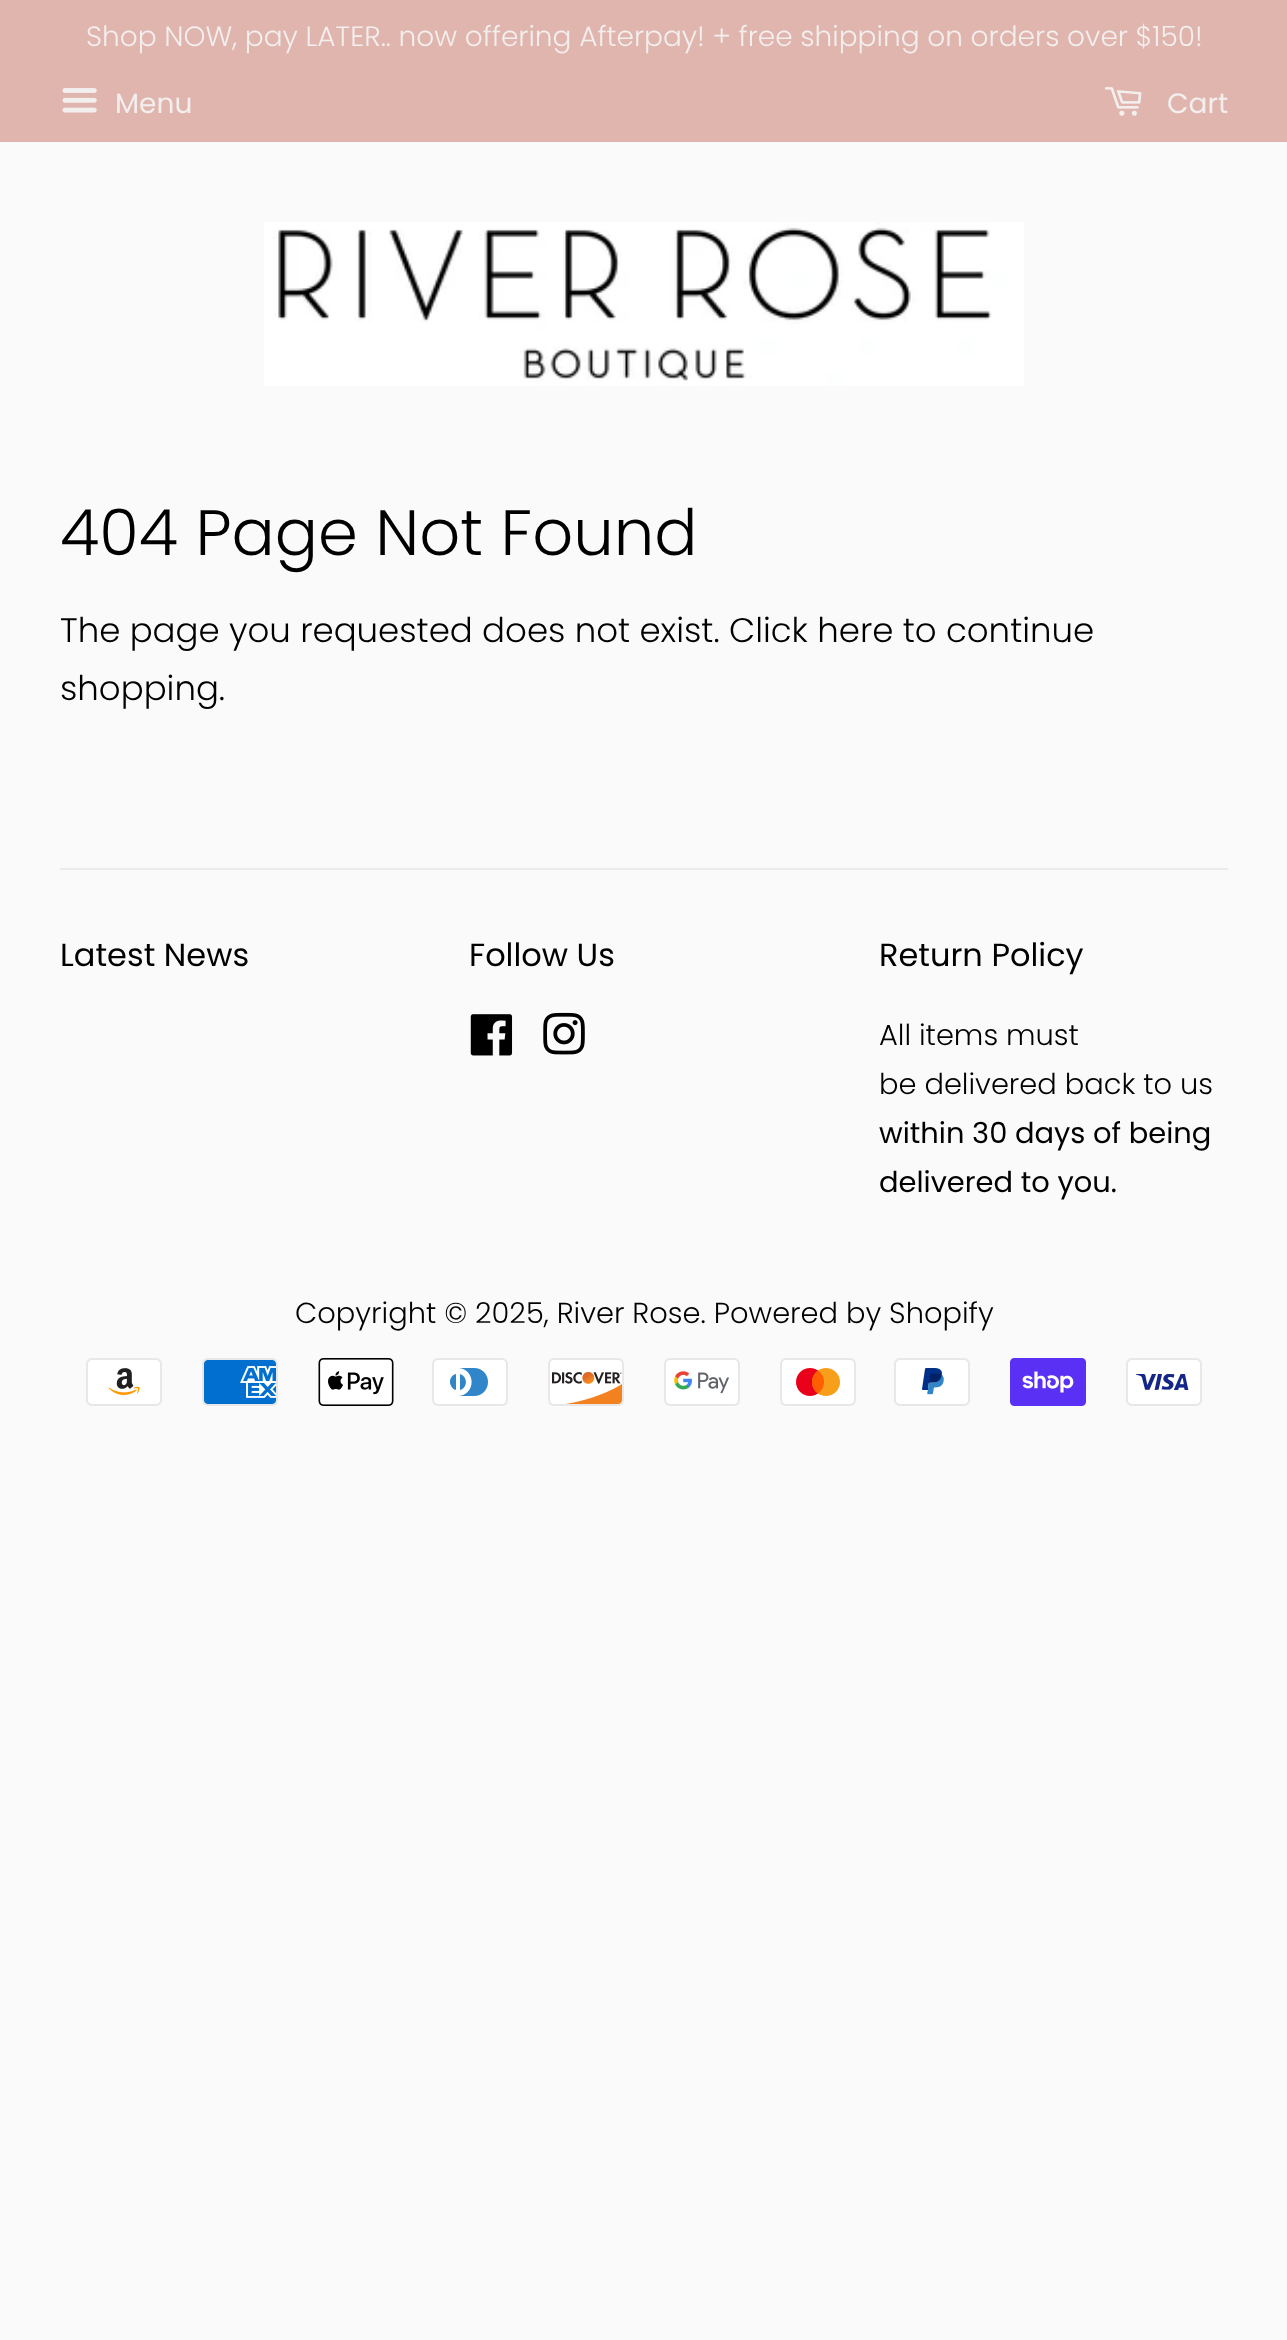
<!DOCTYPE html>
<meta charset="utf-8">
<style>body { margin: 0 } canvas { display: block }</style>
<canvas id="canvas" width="1287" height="2340"></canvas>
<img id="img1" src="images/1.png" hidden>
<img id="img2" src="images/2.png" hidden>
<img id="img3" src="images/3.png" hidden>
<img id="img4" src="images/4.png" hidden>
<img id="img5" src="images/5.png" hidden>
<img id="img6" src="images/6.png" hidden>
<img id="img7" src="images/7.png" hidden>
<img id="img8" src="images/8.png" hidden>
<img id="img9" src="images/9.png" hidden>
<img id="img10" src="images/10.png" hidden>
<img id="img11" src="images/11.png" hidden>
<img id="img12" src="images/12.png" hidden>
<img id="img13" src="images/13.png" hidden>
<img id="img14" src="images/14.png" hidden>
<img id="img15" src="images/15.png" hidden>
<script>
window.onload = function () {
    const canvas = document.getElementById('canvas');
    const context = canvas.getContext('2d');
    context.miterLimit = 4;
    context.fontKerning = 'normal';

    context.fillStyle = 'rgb(250, 250, 250)';
    context.fillRect(0, 0, 1287, 2340);
    context.fillStyle = 'rgb(224, 181, 174)';
    context.fillRect(0, 0, 1287, 142);
    context.drawImage(document.getElementById('img1'), 62, 88, 35, 25);
    context.drawImage(document.getElementById('img2'), 1104, 87, 38, 29);
    context.drawImage(document.getElementById('img3'), 264, 222, 760, 164);
    context.fillStyle = 'rgb(235, 235, 235)';
    context.fillRect(60, 868, 1168, 2);
    context.drawImage(document.getElementById('img4'), 470, 1014, 43, 42);
    context.drawImage(document.getElementById('img5'), 543, 1012, 42, 43);
    context.drawImage(document.getElementById('img6'), 86, 1358, 76, 48);
    context.drawImage(document.getElementById('img7'), 202, 1358, 76, 48);
    context.drawImage(document.getElementById('img8'), 318, 1358, 76, 48);
    context.drawImage(document.getElementById('img9'), 432, 1358, 76, 48);
    context.drawImage(document.getElementById('img10'), 548, 1358, 76, 48);
    context.drawImage(document.getElementById('img11'), 664, 1358, 76, 48);
    context.drawImage(document.getElementById('img12'), 780, 1358, 76, 48);
    context.drawImage(document.getElementById('img13'), 894, 1358, 76, 48);
    context.drawImage(document.getElementById('img14'), 1010, 1358, 76, 48);
    context.drawImage(document.getElementById('img15'), 1126, 1358, 76, 48);
    context.font = '300 28px Poppins';
    context.fillStyle = 'rgb(243, 239, 239)';
    context.fillText('Shop NOW, pay LATER.. now offering Afterpay! + free shipping on orders over $150!', 86, 46);
    context.font = '28px Poppins';
    context.fillText('Menu', 115, 113);
    context.fillText('Cart', 1167, 113);
    context.font = '300 64px Poppins';
    context.fillStyle = 'rgb(0, 0, 0)';
    context.fillText('404 Page Not Found', 60, 555);
    context.font = '300 34px Poppins';
    context.fillText('The page you requested does not exist. Click here to continue', 60, 642);
    context.fillText('shopping.', 60, 700);
    context.font = '32px Poppins';
    context.fillText('Latest News', 60, 966);
    context.fillText('Follow Us', 469, 966);
    context.fillText('Return Policy', 879, 966);
    context.font = '300 28.9px Poppins';
    context.fillText('All items must', 879, 1045);
    context.fillText('be delivered back to us', 879, 1094);
    context.font = '28.9px Poppins';
    context.fillText('within 30 days of being', 879, 1143);
    context.fillText('delivered to you.', 879, 1192);
    context.font = '300 28.9px Poppins';
    context.fillText('Copyright © 2025, River Rose. Powered by Shopify', 295, 1323);
};
</script>
